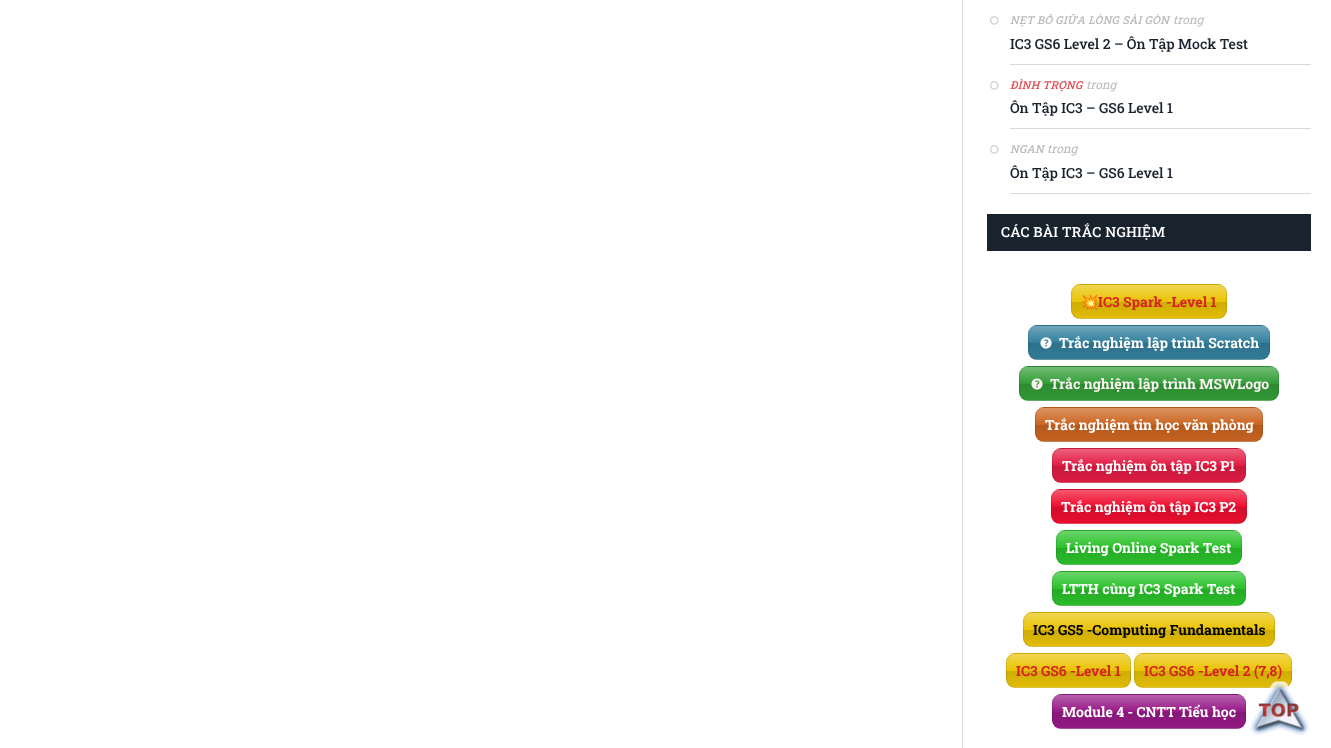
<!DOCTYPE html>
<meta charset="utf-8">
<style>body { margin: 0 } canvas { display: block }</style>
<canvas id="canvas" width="1331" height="748"></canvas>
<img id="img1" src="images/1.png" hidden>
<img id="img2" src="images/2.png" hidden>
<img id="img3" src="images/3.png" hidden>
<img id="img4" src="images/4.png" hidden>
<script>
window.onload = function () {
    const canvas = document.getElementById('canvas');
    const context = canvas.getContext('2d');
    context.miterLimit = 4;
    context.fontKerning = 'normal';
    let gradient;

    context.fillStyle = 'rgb(255, 255, 255)';
    context.fillRect(0, 0, 1331, 748);
    context.fillStyle = 'rgb(217, 217, 217)';
    context.fillRect(962, 0, 1, 748);
    context.fillRect(1010, 64, 301, 1);
    context.drawImage(document.getElementById('img1'), 990, 16, 9, 9);
    context.fillRect(1010, 128, 301, 1);
    context.drawImage(document.getElementById('img1'), 990, 81, 9, 9);
    context.fillRect(1010, 193, 301, 1);
    context.drawImage(document.getElementById('img1'), 990, 145, 9, 9);
    context.fillStyle = 'rgb(25, 35, 45)';
    context.fillRect(987, 214, 324, 37);
    context.fillStyle = 'rgb(234, 196, 4)';
    context.beginPath();
    context.roundRect(1071, 284, 156, 35, 9);
    context.fill();
    gradient = context.createLinearGradient(1149, 252, 1149, 285);
    gradient.addColorStop(0, 'rgba(255, 255, 255, 0.3)');
    gradient.addColorStop(0.5, 'rgba(255, 255, 255, 0)');
    gradient.addColorStop(0.5, 'rgba(0, 0, 0, 0)');
    gradient.addColorStop(0.51, 'rgba(0, 0, 0, 0.12)');
    gradient.addColorStop(1, 'rgba(0, 0, 0, 0.04)');
    context.fillStyle = gradient;
    context.fillRect(1071, 284, 156, 1);
    context.save();
    context.beginPath();
    context.roundRect(1071, 284, 156, 35, 9);
    context.clip();
    gradient = context.createLinearGradient(1149, 285, 1149, 318);
    gradient.addColorStop(0, 'rgba(255, 255, 255, 0.3)');
    gradient.addColorStop(0.5, 'rgba(255, 255, 255, 0)');
    gradient.addColorStop(0.5, 'rgba(0, 0, 0, 0)');
    gradient.addColorStop(0.51, 'rgba(0, 0, 0, 0.12)');
    gradient.addColorStop(1, 'rgba(0, 0, 0, 0.04)');
    context.fillStyle = gradient;
    context.fillRect(1071, 285, 156, 33);
    gradient = context.createLinearGradient(1149, 318, 1149, 351);
    gradient.addColorStop(0, 'rgba(255, 255, 255, 0.3)');
    gradient.addColorStop(0.5, 'rgba(255, 255, 255, 0)');
    gradient.addColorStop(0.5, 'rgba(0, 0, 0, 0)');
    gradient.addColorStop(0.51, 'rgba(0, 0, 0, 0.12)');
    gradient.addColorStop(1, 'rgba(0, 0, 0, 0.04)');
    context.fillStyle = gradient;
    context.fillRect(1071, 318, 156, 1);
    context.restore();
    context.beginPath();
    context.roundRect(1071.5, 284.5, 155, 34, 8.5);
    context.strokeStyle = 'rgba(0, 0, 0, 0.1)';
    context.stroke();
    context.fillStyle = 'rgb(51, 128, 158)';
    context.beginPath();
    context.roundRect(1028, 325, 242, 35, 9);
    context.fill();
    gradient = context.createLinearGradient(1149, 293, 1149, 326);
    gradient.addColorStop(0, 'rgba(255, 255, 255, 0.3)');
    gradient.addColorStop(0.5, 'rgba(255, 255, 255, 0)');
    gradient.addColorStop(0.5, 'rgba(0, 0, 0, 0)');
    gradient.addColorStop(0.51, 'rgba(0, 0, 0, 0.12)');
    gradient.addColorStop(1, 'rgba(0, 0, 0, 0.04)');
    context.fillStyle = gradient;
    context.fillRect(1028, 325, 242, 1);
    context.save();
    context.beginPath();
    context.roundRect(1028, 325, 242, 35, 9);
    context.clip();
    gradient = context.createLinearGradient(1149, 326, 1149, 359);
    gradient.addColorStop(0, 'rgba(255, 255, 255, 0.3)');
    gradient.addColorStop(0.5, 'rgba(255, 255, 255, 0)');
    gradient.addColorStop(0.5, 'rgba(0, 0, 0, 0)');
    gradient.addColorStop(0.51, 'rgba(0, 0, 0, 0.12)');
    gradient.addColorStop(1, 'rgba(0, 0, 0, 0.04)');
    context.fillStyle = gradient;
    context.fillRect(1028, 326, 242, 33);
    gradient = context.createLinearGradient(1149, 359, 1149, 392);
    gradient.addColorStop(0, 'rgba(255, 255, 255, 0.3)');
    gradient.addColorStop(0.5, 'rgba(255, 255, 255, 0)');
    gradient.addColorStop(0.5, 'rgba(0, 0, 0, 0)');
    gradient.addColorStop(0.51, 'rgba(0, 0, 0, 0.12)');
    gradient.addColorStop(1, 'rgba(0, 0, 0, 0.04)');
    context.fillStyle = gradient;
    context.fillRect(1028, 359, 242, 1);
    context.restore();
    context.beginPath();
    context.roundRect(1028.5, 325.5, 241, 34, 8.5);
    context.stroke();
    context.drawImage(document.getElementById('img2'), 1040, 337, 12, 12);
    context.fillStyle = 'rgb(51, 158, 56)';
    context.beginPath();
    context.roundRect(1019, 366, 260, 35, 9);
    context.fill();
    gradient = context.createLinearGradient(1149, 334, 1149, 367);
    gradient.addColorStop(0, 'rgba(255, 255, 255, 0.3)');
    gradient.addColorStop(0.5, 'rgba(255, 255, 255, 0)');
    gradient.addColorStop(0.5, 'rgba(0, 0, 0, 0)');
    gradient.addColorStop(0.51, 'rgba(0, 0, 0, 0.12)');
    gradient.addColorStop(1, 'rgba(0, 0, 0, 0.04)');
    context.fillStyle = gradient;
    context.fillRect(1019, 366, 260, 1);
    context.save();
    context.beginPath();
    context.roundRect(1019, 366, 260, 35, 9);
    context.clip();
    gradient = context.createLinearGradient(1149, 367, 1149, 400);
    gradient.addColorStop(0, 'rgba(255, 255, 255, 0.3)');
    gradient.addColorStop(0.5, 'rgba(255, 255, 255, 0)');
    gradient.addColorStop(0.5, 'rgba(0, 0, 0, 0)');
    gradient.addColorStop(0.51, 'rgba(0, 0, 0, 0.12)');
    gradient.addColorStop(1, 'rgba(0, 0, 0, 0.04)');
    context.fillStyle = gradient;
    context.fillRect(1019, 367, 260, 33);
    gradient = context.createLinearGradient(1149, 400, 1149, 433);
    gradient.addColorStop(0, 'rgba(255, 255, 255, 0.3)');
    gradient.addColorStop(0.5, 'rgba(255, 255, 255, 0)');
    gradient.addColorStop(0.5, 'rgba(0, 0, 0, 0)');
    gradient.addColorStop(0.51, 'rgba(0, 0, 0, 0.12)');
    gradient.addColorStop(1, 'rgba(0, 0, 0, 0.04)');
    context.fillStyle = gradient;
    context.fillRect(1019, 400, 260, 1);
    context.restore();
    context.beginPath();
    context.roundRect(1019.5, 366.5, 259, 34, 8.5);
    context.stroke();
    context.drawImage(document.getElementById('img3'), 1031, 378, 12, 12);
    context.fillStyle = 'rgb(204, 101, 33)';
    context.beginPath();
    context.roundRect(1035, 407, 228, 35, 9);
    context.fill();
    gradient = context.createLinearGradient(1149, 375, 1149, 408);
    gradient.addColorStop(0, 'rgba(255, 255, 255, 0.3)');
    gradient.addColorStop(0.5, 'rgba(255, 255, 255, 0)');
    gradient.addColorStop(0.5, 'rgba(0, 0, 0, 0)');
    gradient.addColorStop(0.51, 'rgba(0, 0, 0, 0.12)');
    gradient.addColorStop(1, 'rgba(0, 0, 0, 0.04)');
    context.fillStyle = gradient;
    context.fillRect(1035, 407, 228, 1);
    context.save();
    context.beginPath();
    context.roundRect(1035, 407, 228, 35, 9);
    context.clip();
    gradient = context.createLinearGradient(1149, 408, 1149, 441);
    gradient.addColorStop(0, 'rgba(255, 255, 255, 0.3)');
    gradient.addColorStop(0.5, 'rgba(255, 255, 255, 0)');
    gradient.addColorStop(0.5, 'rgba(0, 0, 0, 0)');
    gradient.addColorStop(0.51, 'rgba(0, 0, 0, 0.12)');
    gradient.addColorStop(1, 'rgba(0, 0, 0, 0.04)');
    context.fillStyle = gradient;
    context.fillRect(1035, 408, 228, 33);
    gradient = context.createLinearGradient(1149, 441, 1149, 474);
    gradient.addColorStop(0, 'rgba(255, 255, 255, 0.3)');
    gradient.addColorStop(0.5, 'rgba(255, 255, 255, 0)');
    gradient.addColorStop(0.5, 'rgba(0, 0, 0, 0)');
    gradient.addColorStop(0.51, 'rgba(0, 0, 0, 0.12)');
    gradient.addColorStop(1, 'rgba(0, 0, 0, 0.04)');
    context.fillStyle = gradient;
    context.fillRect(1035, 441, 228, 1);
    context.restore();
    context.beginPath();
    context.roundRect(1035.5, 407.5, 227, 34, 8.5);
    context.stroke();
    context.fillStyle = 'rgb(227, 28, 67)';
    context.beginPath();
    context.roundRect(1052, 448, 194, 35, 9);
    context.fill();
    gradient = context.createLinearGradient(1149, 416, 1149, 449);
    gradient.addColorStop(0, 'rgba(255, 255, 255, 0.3)');
    gradient.addColorStop(0.5, 'rgba(255, 255, 255, 0)');
    gradient.addColorStop(0.5, 'rgba(0, 0, 0, 0)');
    gradient.addColorStop(0.51, 'rgba(0, 0, 0, 0.12)');
    gradient.addColorStop(1, 'rgba(0, 0, 0, 0.04)');
    context.fillStyle = gradient;
    context.fillRect(1052, 448, 194, 1);
    context.save();
    context.beginPath();
    context.roundRect(1052, 448, 194, 35, 9);
    context.clip();
    gradient = context.createLinearGradient(1149, 449, 1149, 482);
    gradient.addColorStop(0, 'rgba(255, 255, 255, 0.3)');
    gradient.addColorStop(0.5, 'rgba(255, 255, 255, 0)');
    gradient.addColorStop(0.5, 'rgba(0, 0, 0, 0)');
    gradient.addColorStop(0.51, 'rgba(0, 0, 0, 0.12)');
    gradient.addColorStop(1, 'rgba(0, 0, 0, 0.04)');
    context.fillStyle = gradient;
    context.fillRect(1052, 449, 194, 33);
    gradient = context.createLinearGradient(1149, 482, 1149, 515);
    gradient.addColorStop(0, 'rgba(255, 255, 255, 0.3)');
    gradient.addColorStop(0.5, 'rgba(255, 255, 255, 0)');
    gradient.addColorStop(0.5, 'rgba(0, 0, 0, 0)');
    gradient.addColorStop(0.51, 'rgba(0, 0, 0, 0.12)');
    gradient.addColorStop(1, 'rgba(0, 0, 0, 0.04)');
    context.fillStyle = gradient;
    context.fillRect(1052, 482, 194, 1);
    context.restore();
    context.beginPath();
    context.roundRect(1052.5, 448.5, 193, 34, 8.5);
    context.stroke();
    context.fillStyle = 'rgb(240, 14, 48)';
    context.beginPath();
    context.roundRect(1051, 489, 196, 35, 9);
    context.fill();
    gradient = context.createLinearGradient(1149, 457, 1149, 490);
    gradient.addColorStop(0, 'rgba(255, 255, 255, 0.3)');
    gradient.addColorStop(0.5, 'rgba(255, 255, 255, 0)');
    gradient.addColorStop(0.5, 'rgba(0, 0, 0, 0)');
    gradient.addColorStop(0.51, 'rgba(0, 0, 0, 0.12)');
    gradient.addColorStop(1, 'rgba(0, 0, 0, 0.04)');
    context.fillStyle = gradient;
    context.fillRect(1051, 489, 196, 1);
    context.save();
    context.beginPath();
    context.roundRect(1051, 489, 196, 35, 9);
    context.clip();
    gradient = context.createLinearGradient(1149, 490, 1149, 523);
    gradient.addColorStop(0, 'rgba(255, 255, 255, 0.3)');
    gradient.addColorStop(0.5, 'rgba(255, 255, 255, 0)');
    gradient.addColorStop(0.5, 'rgba(0, 0, 0, 0)');
    gradient.addColorStop(0.51, 'rgba(0, 0, 0, 0.12)');
    gradient.addColorStop(1, 'rgba(0, 0, 0, 0.04)');
    context.fillStyle = gradient;
    context.fillRect(1051, 490, 196, 33);
    gradient = context.createLinearGradient(1149, 523, 1149, 556);
    gradient.addColorStop(0, 'rgba(255, 255, 255, 0.3)');
    gradient.addColorStop(0.5, 'rgba(255, 255, 255, 0)');
    gradient.addColorStop(0.5, 'rgba(0, 0, 0, 0)');
    gradient.addColorStop(0.51, 'rgba(0, 0, 0, 0.12)');
    gradient.addColorStop(1, 'rgba(0, 0, 0, 0.04)');
    context.fillStyle = gradient;
    context.fillRect(1051, 523, 196, 1);
    context.restore();
    context.beginPath();
    context.roundRect(1051.5, 489.5, 195, 34, 8.5);
    context.stroke();
    context.fillStyle = 'rgb(43, 194, 43)';
    context.beginPath();
    context.roundRect(1056, 530, 186, 35, 9);
    context.fill();
    gradient = context.createLinearGradient(1149, 498, 1149, 531);
    gradient.addColorStop(0, 'rgba(255, 255, 255, 0.3)');
    gradient.addColorStop(0.5, 'rgba(255, 255, 255, 0)');
    gradient.addColorStop(0.5, 'rgba(0, 0, 0, 0)');
    gradient.addColorStop(0.51, 'rgba(0, 0, 0, 0.12)');
    gradient.addColorStop(1, 'rgba(0, 0, 0, 0.04)');
    context.fillStyle = gradient;
    context.fillRect(1056, 530, 186, 1);
    context.save();
    context.beginPath();
    context.roundRect(1056, 530, 186, 35, 9);
    context.clip();
    gradient = context.createLinearGradient(1149, 531, 1149, 564);
    gradient.addColorStop(0, 'rgba(255, 255, 255, 0.3)');
    gradient.addColorStop(0.5, 'rgba(255, 255, 255, 0)');
    gradient.addColorStop(0.5, 'rgba(0, 0, 0, 0)');
    gradient.addColorStop(0.51, 'rgba(0, 0, 0, 0.12)');
    gradient.addColorStop(1, 'rgba(0, 0, 0, 0.04)');
    context.fillStyle = gradient;
    context.fillRect(1056, 531, 186, 33);
    gradient = context.createLinearGradient(1149, 564, 1149, 597);
    gradient.addColorStop(0, 'rgba(255, 255, 255, 0.3)');
    gradient.addColorStop(0.5, 'rgba(255, 255, 255, 0)');
    gradient.addColorStop(0.5, 'rgba(0, 0, 0, 0)');
    gradient.addColorStop(0.51, 'rgba(0, 0, 0, 0.12)');
    gradient.addColorStop(1, 'rgba(0, 0, 0, 0.04)');
    context.fillStyle = gradient;
    context.fillRect(1056, 564, 186, 1);
    context.restore();
    context.beginPath();
    context.roundRect(1056.5, 530.5, 185, 34, 8.5);
    context.stroke();
    context.fillStyle = 'rgb(43, 194, 43)';
    context.beginPath();
    context.roundRect(1052, 571, 194, 35, 9);
    context.fill();
    gradient = context.createLinearGradient(1149, 539, 1149, 572);
    gradient.addColorStop(0, 'rgba(255, 255, 255, 0.3)');
    gradient.addColorStop(0.5, 'rgba(255, 255, 255, 0)');
    gradient.addColorStop(0.5, 'rgba(0, 0, 0, 0)');
    gradient.addColorStop(0.51, 'rgba(0, 0, 0, 0.12)');
    gradient.addColorStop(1, 'rgba(0, 0, 0, 0.04)');
    context.fillStyle = gradient;
    context.fillRect(1052, 571, 194, 1);
    context.save();
    context.beginPath();
    context.roundRect(1052, 571, 194, 35, 9);
    context.clip();
    gradient = context.createLinearGradient(1149, 572, 1149, 605);
    gradient.addColorStop(0, 'rgba(255, 255, 255, 0.3)');
    gradient.addColorStop(0.5, 'rgba(255, 255, 255, 0)');
    gradient.addColorStop(0.5, 'rgba(0, 0, 0, 0)');
    gradient.addColorStop(0.51, 'rgba(0, 0, 0, 0.12)');
    gradient.addColorStop(1, 'rgba(0, 0, 0, 0.04)');
    context.fillStyle = gradient;
    context.fillRect(1052, 572, 194, 33);
    gradient = context.createLinearGradient(1149, 605, 1149, 638);
    gradient.addColorStop(0, 'rgba(255, 255, 255, 0.3)');
    gradient.addColorStop(0.5, 'rgba(255, 255, 255, 0)');
    gradient.addColorStop(0.5, 'rgba(0, 0, 0, 0)');
    gradient.addColorStop(0.51, 'rgba(0, 0, 0, 0.12)');
    gradient.addColorStop(1, 'rgba(0, 0, 0, 0.04)');
    context.fillStyle = gradient;
    context.fillRect(1052, 605, 194, 1);
    context.restore();
    context.beginPath();
    context.roundRect(1052.5, 571.5, 193, 34, 8.5);
    context.stroke();
    context.fillStyle = 'rgb(234, 196, 4)';
    context.beginPath();
    context.roundRect(1023, 612, 252, 35, 9);
    context.fill();
    gradient = context.createLinearGradient(1149, 580, 1149, 613);
    gradient.addColorStop(0, 'rgba(255, 255, 255, 0.3)');
    gradient.addColorStop(0.5, 'rgba(255, 255, 255, 0)');
    gradient.addColorStop(0.5, 'rgba(0, 0, 0, 0)');
    gradient.addColorStop(0.51, 'rgba(0, 0, 0, 0.12)');
    gradient.addColorStop(1, 'rgba(0, 0, 0, 0.04)');
    context.fillStyle = gradient;
    context.fillRect(1023, 612, 252, 1);
    context.save();
    context.beginPath();
    context.roundRect(1023, 612, 252, 35, 9);
    context.clip();
    gradient = context.createLinearGradient(1149, 613, 1149, 646);
    gradient.addColorStop(0, 'rgba(255, 255, 255, 0.3)');
    gradient.addColorStop(0.5, 'rgba(255, 255, 255, 0)');
    gradient.addColorStop(0.5, 'rgba(0, 0, 0, 0)');
    gradient.addColorStop(0.51, 'rgba(0, 0, 0, 0.12)');
    gradient.addColorStop(1, 'rgba(0, 0, 0, 0.04)');
    context.fillStyle = gradient;
    context.fillRect(1023, 613, 252, 33);
    gradient = context.createLinearGradient(1149, 646, 1149, 679);
    gradient.addColorStop(0, 'rgba(255, 255, 255, 0.3)');
    gradient.addColorStop(0.5, 'rgba(255, 255, 255, 0)');
    gradient.addColorStop(0.5, 'rgba(0, 0, 0, 0)');
    gradient.addColorStop(0.51, 'rgba(0, 0, 0, 0.12)');
    gradient.addColorStop(1, 'rgba(0, 0, 0, 0.04)');
    context.fillStyle = gradient;
    context.fillRect(1023, 646, 252, 1);
    context.restore();
    context.beginPath();
    context.roundRect(1023.5, 612.5, 251, 34, 8.5);
    context.stroke();
    context.fillStyle = 'rgb(234, 196, 4)';
    context.beginPath();
    context.roundRect(1006, 653, 125, 35, 9);
    context.fill();
    gradient = context.createLinearGradient(1069, 621, 1069, 654);
    gradient.addColorStop(0, 'rgba(255, 255, 255, 0.3)');
    gradient.addColorStop(0.5, 'rgba(255, 255, 255, 0)');
    gradient.addColorStop(0.5, 'rgba(0, 0, 0, 0)');
    gradient.addColorStop(0.51, 'rgba(0, 0, 0, 0.12)');
    gradient.addColorStop(1, 'rgba(0, 0, 0, 0.04)');
    context.fillStyle = gradient;
    context.fillRect(1006, 653, 125, 1);
    context.save();
    context.beginPath();
    context.roundRect(1006, 653, 125, 35, 9);
    context.clip();
    gradient = context.createLinearGradient(1069, 654, 1069, 687);
    gradient.addColorStop(0, 'rgba(255, 255, 255, 0.3)');
    gradient.addColorStop(0.5, 'rgba(255, 255, 255, 0)');
    gradient.addColorStop(0.5, 'rgba(0, 0, 0, 0)');
    gradient.addColorStop(0.51, 'rgba(0, 0, 0, 0.12)');
    gradient.addColorStop(1, 'rgba(0, 0, 0, 0.04)');
    context.fillStyle = gradient;
    context.fillRect(1006, 654, 125, 33);
    gradient = context.createLinearGradient(1069, 687, 1069, 720);
    gradient.addColorStop(0, 'rgba(255, 255, 255, 0.3)');
    gradient.addColorStop(0.5, 'rgba(255, 255, 255, 0)');
    gradient.addColorStop(0.5, 'rgba(0, 0, 0, 0)');
    gradient.addColorStop(0.51, 'rgba(0, 0, 0, 0.12)');
    gradient.addColorStop(1, 'rgba(0, 0, 0, 0.04)');
    context.fillStyle = gradient;
    context.fillRect(1006, 687, 125, 1);
    context.restore();
    context.beginPath();
    context.roundRect(1006.5, 653.5, 124, 34, 8.5);
    context.stroke();
    context.fillStyle = 'rgb(234, 196, 4)';
    context.beginPath();
    context.roundRect(1134, 653, 158, 35, 9);
    context.fill();
    gradient = context.createLinearGradient(1213, 621, 1213, 654);
    gradient.addColorStop(0, 'rgba(255, 255, 255, 0.3)');
    gradient.addColorStop(0.5, 'rgba(255, 255, 255, 0)');
    gradient.addColorStop(0.5, 'rgba(0, 0, 0, 0)');
    gradient.addColorStop(0.51, 'rgba(0, 0, 0, 0.12)');
    gradient.addColorStop(1, 'rgba(0, 0, 0, 0.04)');
    context.fillStyle = gradient;
    context.fillRect(1134, 653, 158, 1);
    context.save();
    context.beginPath();
    context.roundRect(1134, 653, 158, 35, 9);
    context.clip();
    gradient = context.createLinearGradient(1213, 654, 1213, 687);
    gradient.addColorStop(0, 'rgba(255, 255, 255, 0.3)');
    gradient.addColorStop(0.5, 'rgba(255, 255, 255, 0)');
    gradient.addColorStop(0.5, 'rgba(0, 0, 0, 0)');
    gradient.addColorStop(0.51, 'rgba(0, 0, 0, 0.12)');
    gradient.addColorStop(1, 'rgba(0, 0, 0, 0.04)');
    context.fillStyle = gradient;
    context.fillRect(1134, 654, 158, 33);
    gradient = context.createLinearGradient(1213, 687, 1213, 720);
    gradient.addColorStop(0, 'rgba(255, 255, 255, 0.3)');
    gradient.addColorStop(0.5, 'rgba(255, 255, 255, 0)');
    gradient.addColorStop(0.5, 'rgba(0, 0, 0, 0)');
    gradient.addColorStop(0.51, 'rgba(0, 0, 0, 0.12)');
    gradient.addColorStop(1, 'rgba(0, 0, 0, 0.04)');
    context.fillStyle = gradient;
    context.fillRect(1134, 687, 158, 1);
    context.restore();
    context.beginPath();
    context.roundRect(1134.5, 653.5, 157, 34, 8.5);
    context.stroke();
    context.fillStyle = 'rgb(152, 26, 136)';
    context.beginPath();
    context.roundRect(1052, 694, 194, 35, 9);
    context.fill();
    gradient = context.createLinearGradient(1149, 662, 1149, 695);
    gradient.addColorStop(0, 'rgba(255, 255, 255, 0.3)');
    gradient.addColorStop(0.5, 'rgba(255, 255, 255, 0)');
    gradient.addColorStop(0.5, 'rgba(0, 0, 0, 0)');
    gradient.addColorStop(0.51, 'rgba(0, 0, 0, 0.12)');
    gradient.addColorStop(1, 'rgba(0, 0, 0, 0.04)');
    context.fillStyle = gradient;
    context.fillRect(1052, 694, 194, 1);
    context.save();
    context.beginPath();
    context.roundRect(1052, 694, 194, 35, 9);
    context.clip();
    gradient = context.createLinearGradient(1149, 695, 1149, 728);
    gradient.addColorStop(0, 'rgba(255, 255, 255, 0.3)');
    gradient.addColorStop(0.5, 'rgba(255, 255, 255, 0)');
    gradient.addColorStop(0.5, 'rgba(0, 0, 0, 0)');
    gradient.addColorStop(0.51, 'rgba(0, 0, 0, 0.12)');
    gradient.addColorStop(1, 'rgba(0, 0, 0, 0.04)');
    context.fillStyle = gradient;
    context.fillRect(1052, 695, 194, 33);
    gradient = context.createLinearGradient(1149, 728, 1149, 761);
    gradient.addColorStop(0, 'rgba(255, 255, 255, 0.3)');
    gradient.addColorStop(0.5, 'rgba(255, 255, 255, 0)');
    gradient.addColorStop(0.5, 'rgba(0, 0, 0, 0)');
    gradient.addColorStop(0.51, 'rgba(0, 0, 0, 0.12)');
    gradient.addColorStop(1, 'rgba(0, 0, 0, 0.04)');
    context.fillStyle = gradient;
    context.fillRect(1052, 728, 194, 1);
    context.restore();
    context.beginPath();
    context.roundRect(1052.5, 694.5, 193, 34, 8.5);
    context.stroke();
    context.drawImage(document.getElementById('img4'), 1250, 681, 59, 54);
    context.letterSpacing = '0.3px';
    context.font = 'italic 500 11px Roboto Slab';
    context.fillStyle = 'rgb(187, 187, 187)';
    context.fillText('NẸT BÔ GIỮA LÒNG SÀI GÒN', 1010, 24);
    context.letterSpacing = '0px';
    context.font = 'italic 12px Roboto Slab';
    context.fillText('trong', 1173, 24);
    context.font = '500 14px Roboto Slab';
    context.fillStyle = 'rgb(25, 35, 45)';
    context.fillText('IC3 GS6 Level 2 – Ôn Tập Mock Test', 1010, 49);
    context.letterSpacing = '0.3px';
    context.font = 'italic 500 11px Roboto Slab';
    context.fillStyle = 'rgb(229, 78, 83)';
    context.fillText('ĐÌNH TRỌNG', 1010, 89);
    context.letterSpacing = '0px';
    context.font = 'italic 12px Roboto Slab';
    context.fillStyle = 'rgb(187, 187, 187)';
    context.fillText('trong', 1086, 89);
    context.font = '500 14px Roboto Slab';
    context.fillStyle = 'rgb(25, 35, 45)';
    context.fillText('Ôn Tập IC3 – GS6 Level 1', 1010, 113);
    context.letterSpacing = '0.3px';
    context.font = 'italic 500 11px Roboto Slab';
    context.fillStyle = 'rgb(187, 187, 187)';
    context.fillText('NGAN', 1010, 153);
    context.letterSpacing = '0px';
    context.font = 'italic 12px Roboto Slab';
    context.fillText('trong', 1047, 153);
    context.font = '500 14px Roboto Slab';
    context.fillStyle = 'rgb(25, 35, 45)';
    context.fillText('Ôn Tập IC3 – GS6 Level 1', 1010, 178);
    context.letterSpacing = '0.25px';
    context.fillStyle = 'rgb(255, 255, 255)';
    context.fillText('CÁC BÀI TRẮC NGHIỆM', 1001, 237);
    context.letterSpacing = '0px';
    context.font = 'bold 14px Noto Color Emoji';
    context.fillStyle = 'rgb(214, 34, 34)';
    context.fillText('💥', 1081, 307);
    context.font = 'bold 14px Roboto Slab';
    context.fillText('IC3 Spark -Level 1', 1098, 307);
    context.fillStyle = 'rgb(255, 255, 255)';
    context.fillText('Trắc nghiệm lập trình Scratch', 1059, 348);
    context.fillStyle = 'rgb(250, 242, 242)';
    context.fillText('Trắc nghiệm lập trình MSWLogo', 1050, 389);
    context.fillStyle = 'rgb(255, 255, 255)';
    context.fillText('Trắc nghiệm tin học văn phòng', 1045, 430);
    context.fillText('Trắc nghiệm ôn tập IC3 P1', 1062, 471);
    context.fillText('Trắc nghiệm ôn tập IC3 P2', 1061, 512);
    context.fillText('Living Online Spark Test', 1066, 553);
    context.fillText('LTTH cùng IC3 Spark Test', 1062, 594);
    context.fillStyle = 'rgb(0, 0, 0)';
    context.fillText('IC3 GS5 -Computing Fundamentals', 1033, 635);
    context.fillStyle = 'rgb(214, 34, 34)';
    context.fillText('IC3 GS6 -Level 1', 1016, 676);
    context.fillText('IC3 GS6 -Level 2 (7,8)', 1144, 676);
    context.fillStyle = 'rgb(255, 255, 255)';
    context.fillText('Module 4 - CNTT Tiểu học', 1062, 717);
};
</script>
